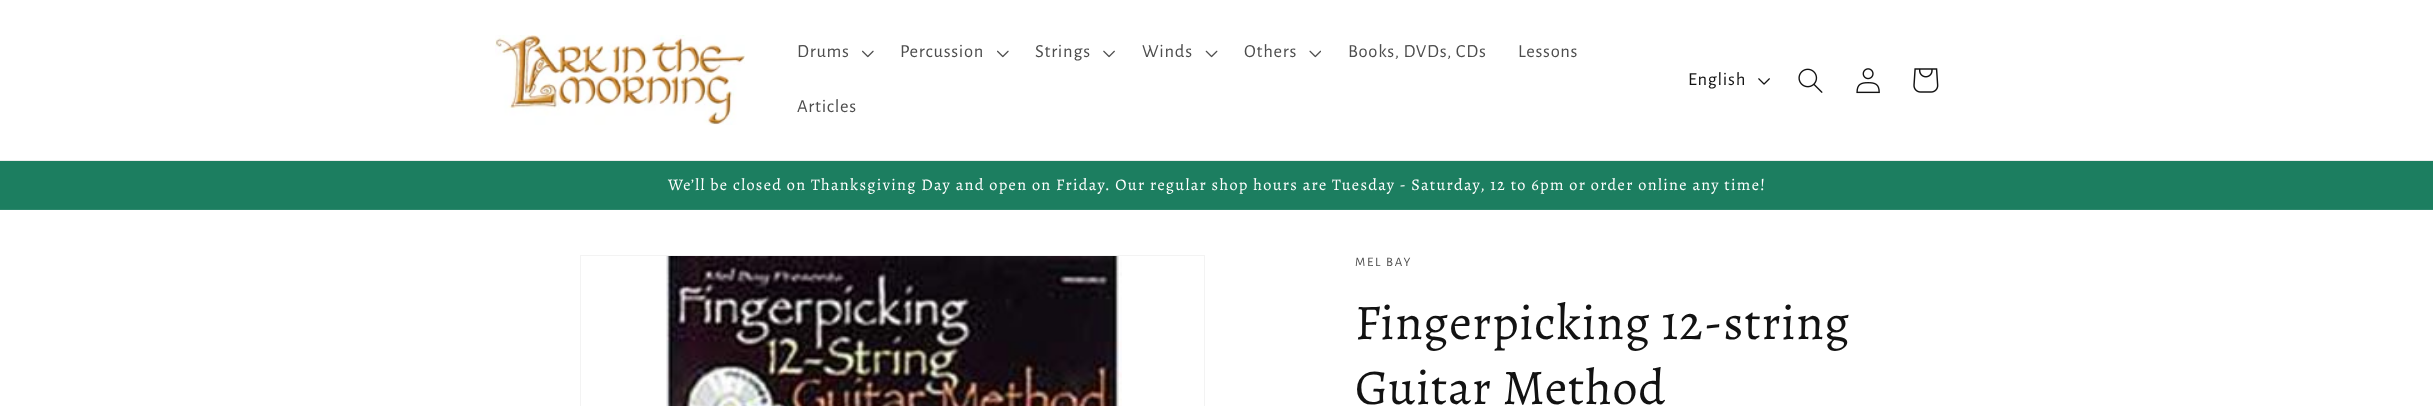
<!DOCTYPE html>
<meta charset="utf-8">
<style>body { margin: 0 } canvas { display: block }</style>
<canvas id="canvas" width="2433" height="406"></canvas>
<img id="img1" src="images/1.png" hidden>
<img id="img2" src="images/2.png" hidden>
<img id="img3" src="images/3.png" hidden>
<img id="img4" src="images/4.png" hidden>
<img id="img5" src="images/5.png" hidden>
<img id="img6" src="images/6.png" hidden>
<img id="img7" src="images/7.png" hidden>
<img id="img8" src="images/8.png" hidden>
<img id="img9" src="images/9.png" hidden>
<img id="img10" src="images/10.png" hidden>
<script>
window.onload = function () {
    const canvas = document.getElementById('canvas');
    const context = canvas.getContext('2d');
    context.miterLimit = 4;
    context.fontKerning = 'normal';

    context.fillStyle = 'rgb(255, 255, 255)';
    context.fillRect(0, 0, 2433, 406);
    context.fillStyle = 'rgb(236, 236, 236)';
    context.fillRect(0, 160, 2433, 1);
    context.drawImage(document.getElementById('img1'), 495, 35, 250, 90);
    context.drawImage(document.getElementById('img2'), 862, 50, 12, 8);
    context.drawImage(document.getElementById('img2'), 997, 50, 12, 8);
    context.drawImage(document.getElementById('img3'), 1103, 50, 12, 8);
    context.drawImage(document.getElementById('img4'), 1205, 50, 13, 8);
    context.drawImage(document.getElementById('img5'), 1309, 50, 12, 8);
    context.drawImage(document.getElementById('img6'), 1758, 78, 12, 7);
    context.drawImage(document.getElementById('img7'), 1798, 68, 25, 25);
    context.drawImage(document.getElementById('img8'), 1856, 68, 24, 26);
    context.drawImage(document.getElementById('img9'), 1913, 68, 26, 25);
    context.fillStyle = 'rgb(28, 126, 96)';
    context.fillRect(0, 161, 2433, 48);
    context.fillStyle = 'rgb(46, 136, 109)';
    context.fillRect(0, 209, 2433, 1);
    context.strokeStyle = 'rgb(243, 243, 243)';
    context.strokeRect(580.5, 255.5, 624, 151);
    context.drawImage(document.getElementById('img10'), 666, 256, 456, 150);
    context.letterSpacing = '0.75px';
    context.font = '18.5px Alegreya Sans';
    context.fillStyle = 'rgb(77, 77, 77)';
    context.fillText('Drums', 797, 57);
    context.fillText('Percussion', 900, 57);
    context.fillText('Strings', 1035, 57);
    context.fillText('Winds', 1142, 57);
    context.fillText('Others', 1244, 57);
    context.fillText('Books, DVDs, CDs', 1348, 57);
    context.fillText('Lessons', 1518, 57);
    context.fillText('Articles', 797, 112);
    context.fillStyle = 'rgb(18, 18, 18)';
    context.fillText('English', 1688, 85);
    context.letterSpacing = '1.31px';
    context.font = '16.25px Alegreya';
    context.fillStyle = 'rgb(255, 255, 255)';
    context.fillText('We’ll be closed on Thanksgiving Day and open on Friday. Our regular shop hours are Tuesday - Saturday, 12 to 6pm or order online any time!', 668, 190);
    context.letterSpacing = '1.75px';
    context.font = '13px Alegreya Sans';
    context.fillStyle = 'rgb(77, 77, 77)';
    context.fillText('MEL BAY', 1355, 266);
    context.letterSpacing = '0.75px';
    context.font = '50px Alegreya';
    context.fillStyle = 'rgb(18, 18, 18)';
    context.fillText('Fingerpicking 12-string', 1355, 339);
    context.fillText('Guitar Method', 1355, 404);
};
</script>
